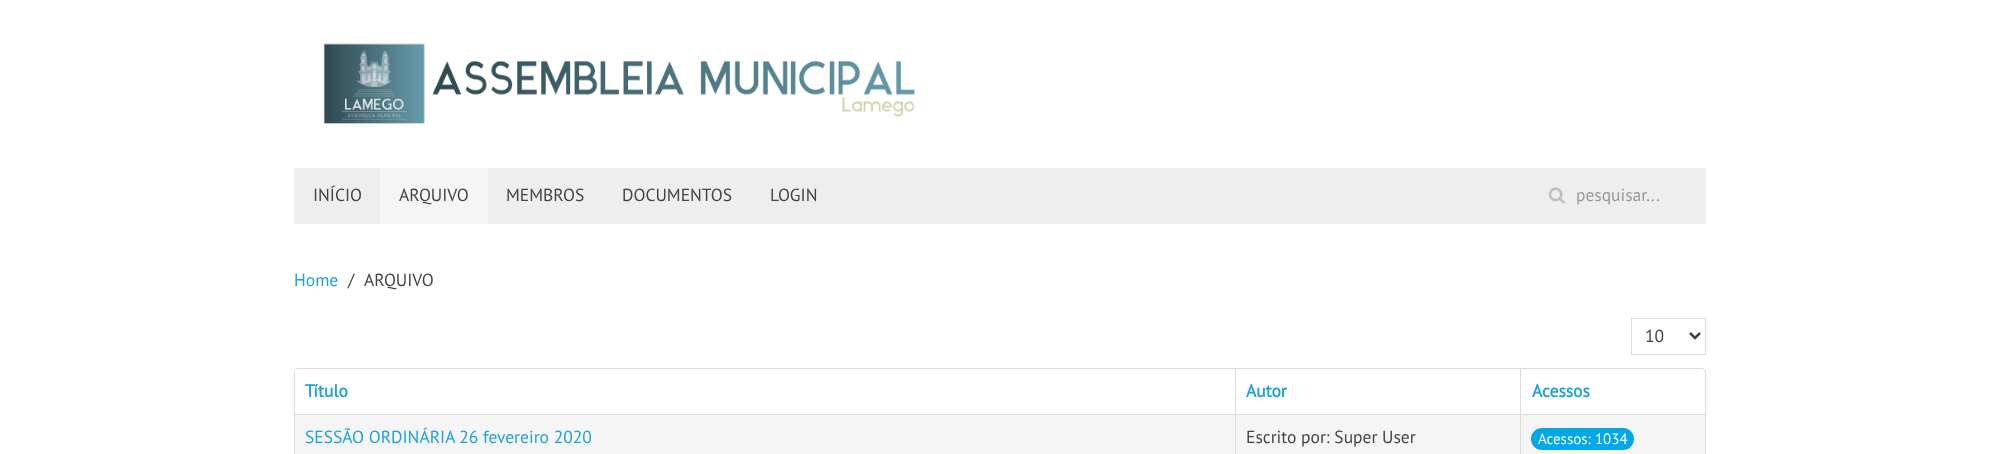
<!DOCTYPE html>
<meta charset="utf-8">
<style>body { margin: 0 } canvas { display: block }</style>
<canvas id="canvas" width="2000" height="454"></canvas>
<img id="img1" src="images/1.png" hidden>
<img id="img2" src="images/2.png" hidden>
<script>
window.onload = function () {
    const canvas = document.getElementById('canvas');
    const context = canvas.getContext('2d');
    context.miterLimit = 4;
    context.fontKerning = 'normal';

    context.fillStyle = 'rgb(255, 255, 255)';
    context.fillRect(0, 0, 2000, 454);
    context.drawImage(document.getElementById('img1'), 323, 43, 592, 81);
    context.fillStyle = 'rgb(238, 238, 238)';
    context.fillRect(294, 168, 1412, 56);
    context.fillStyle = 'rgb(245, 245, 245)';
    context.fillRect(380, 168, 108, 56);
    context.drawImage(document.getElementById('img2'), 1548, 187, 17, 17);
    context.strokeStyle = 'rgb(221, 221, 221)';
    context.strokeRect(1631.5, 318.5, 74, 36);
    context.beginPath();
    context.moveTo(1690, 333);
    context.lineTo(1695, 338);
    context.lineTo(1700, 333);
    context.strokeStyle = 'rgb(68, 68, 68)';
    context.lineWidth = 2.5;
    context.stroke();
    context.fillStyle = 'rgb(221, 221, 221)';
    context.beginPath();
    context.moveTo(299, 368);
    context.lineTo(1701, 368);
    context.bezierCurveTo(1704, 368, 1706, 370, 1706, 372);
    context.lineTo(1706, 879);
    context.bezierCurveTo(1706, 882, 1704, 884, 1701, 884);
    context.lineTo(299, 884);
    context.bezierCurveTo(296, 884, 294, 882, 294, 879);
    context.lineTo(294, 372);
    context.bezierCurveTo(294, 370, 296, 368, 299, 368);
    context.closePath();
    context.moveTo(299, 369);
    context.lineTo(1701, 369);
    context.bezierCurveTo(1703, 369, 1705, 370, 1705, 372);
    context.lineTo(1705, 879);
    context.bezierCurveTo(1705, 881, 1703, 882, 1701, 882);
    context.lineTo(299, 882);
    context.bezierCurveTo(296, 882, 294, 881, 294, 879);
    context.lineTo(294, 372);
    context.bezierCurveTo(294, 370, 296, 369, 299, 369);
    context.closePath();
    context.fill('evenodd');
    context.fillRect(294, 371, 1, 43);
    context.fillRect(1235, 369, 1, 45);
    context.fillRect(1520, 369, 1, 45);
    context.fillStyle = 'rgb(245, 245, 245)';
    context.fillRect(295, 415, 940, 39);
    context.fillStyle = 'rgb(221, 221, 221)';
    context.fillRect(294, 414, 1411, 1);
    context.fillRect(294, 414, 1, 40);
    context.fillStyle = 'rgb(245, 245, 245)';
    context.fillRect(1236, 415, 284, 39);
    context.fillStyle = 'rgb(221, 221, 221)';
    context.fillRect(1235, 414, 1, 40);
    context.fillStyle = 'rgb(245, 245, 245)';
    context.fillRect(1521, 415, 184, 39);
    context.fillStyle = 'rgb(221, 221, 221)';
    context.fillRect(1520, 414, 1, 40);
    context.fillStyle = 'rgb(0, 168, 230)';
    context.beginPath();
    context.roundRect(1531, 428, 103, 22, 11);
    context.fill();
    context.font = '17.5px PT Sans';
    context.fillStyle = 'rgb(68, 68, 68)';
    context.fillText('INÍCIO', 313, 201);
    context.fillText('ARQUIVO', 399, 201);
    context.fillText('MEMBROS', 506, 201);
    context.fillText('DOCUMENTOS', 622, 201);
    context.fillText('LOGIN', 770, 201);
    context.fillStyle = 'rgb(153, 153, 153)';
    context.fillText('pesquisar...', 1576, 201);
    context.fillStyle = 'rgb(31, 162, 214)';
    context.fillText('Home', 294, 286);
    context.fillStyle = 'rgb(68, 68, 68)';
    context.fillText('/', 348, 286);
    context.fillText('ARQUIVO', 364, 286);
    context.fillText('10', 1645, 342);
    context.font = 'bold 17.5px PT Sans';
    context.fillStyle = 'rgb(31, 162, 214)';
    context.fillText('Título', 305, 397);
    context.fillText('Autor', 1246, 397);
    context.fillText('Acessos', 1532, 397);
    context.font = '17.5px PT Sans';
    context.fillText('SESSÃO ORDINÁRIA 26 fevereiro 2020', 305, 443);
    context.fillStyle = 'rgb(68, 68, 68)';
    context.fillText('Escrito por: Super User', 1246, 443);
    context.font = '15px PT Sans';
    context.fillStyle = 'rgb(255, 255, 255)';
    context.fillText('Acessos: 1034', 1538, 444);
};
</script>
